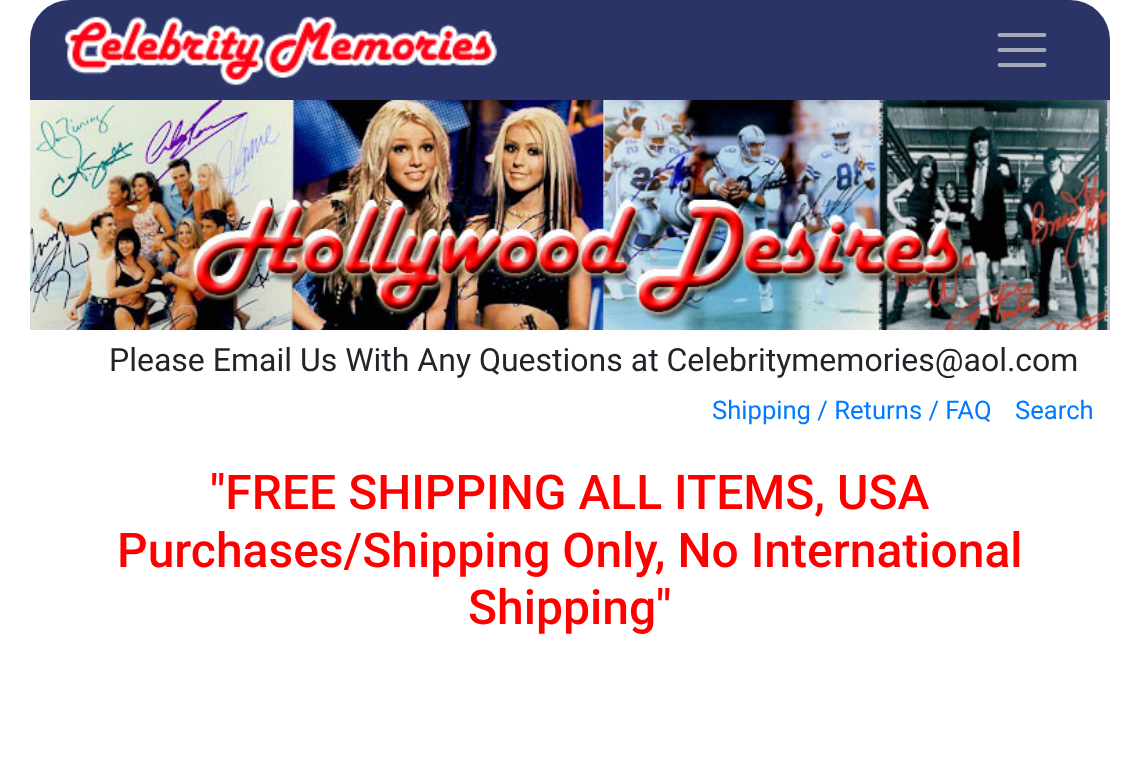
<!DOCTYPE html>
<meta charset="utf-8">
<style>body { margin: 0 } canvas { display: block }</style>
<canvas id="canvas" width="1140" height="768"></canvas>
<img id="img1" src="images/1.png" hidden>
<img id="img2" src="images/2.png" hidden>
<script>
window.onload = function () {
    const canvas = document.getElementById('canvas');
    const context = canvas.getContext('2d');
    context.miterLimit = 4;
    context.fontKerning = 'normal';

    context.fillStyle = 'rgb(255, 255, 255)';
    context.fillRect(0, 0, 1140, 768);
    context.fillStyle = 'rgb(42, 52, 103)';
    context.beginPath();
    context.roundRect(30, 0, 1080, 100, [40, 40, 0, 0]);
    context.fill();
    context.drawImage(document.getElementById('img1'), 63, 16, 435, 70);
    context.beginPath();
    context.moveTo(999.5, 35);
    context.lineTo(1044.5, 35);
    context.moveTo(999.5, 50);
    context.lineTo(1044.5, 50);
    context.moveTo(999.5, 65);
    context.lineTo(1044.5, 65);
    context.strokeStyle = 'rgb(166, 169, 184)';
    context.lineWidth = 3.8;
    context.lineCap = 'round';
    context.stroke();
    context.drawImage(document.getElementById('img2'), 30, 100, 1080, 230);
    context.font = '32px Roboto';
    context.fillStyle = 'rgb(33, 37, 41)';
    context.fillText('Please Email Us With Any Questions at Celebritymemories@aol.com', 109, 371);
    context.font = '25.6px Roboto';
    context.fillStyle = 'rgb(0, 123, 255)';
    context.fillText('Shipping / Returns / FAQ', 712, 419);
    context.fillText('Search', 1015, 419);
    context.font = '500 48px Roboto';
    context.fillStyle = 'rgb(255, 0, 0)';
    context.fillText('"FREE SHIPPING ALL ITEMS, USA', 210, 509);
    context.fillText('Purchases/Shipping Only, No International', 117, 567);
    context.fillText('Shipping"', 468, 624);
};
</script>
